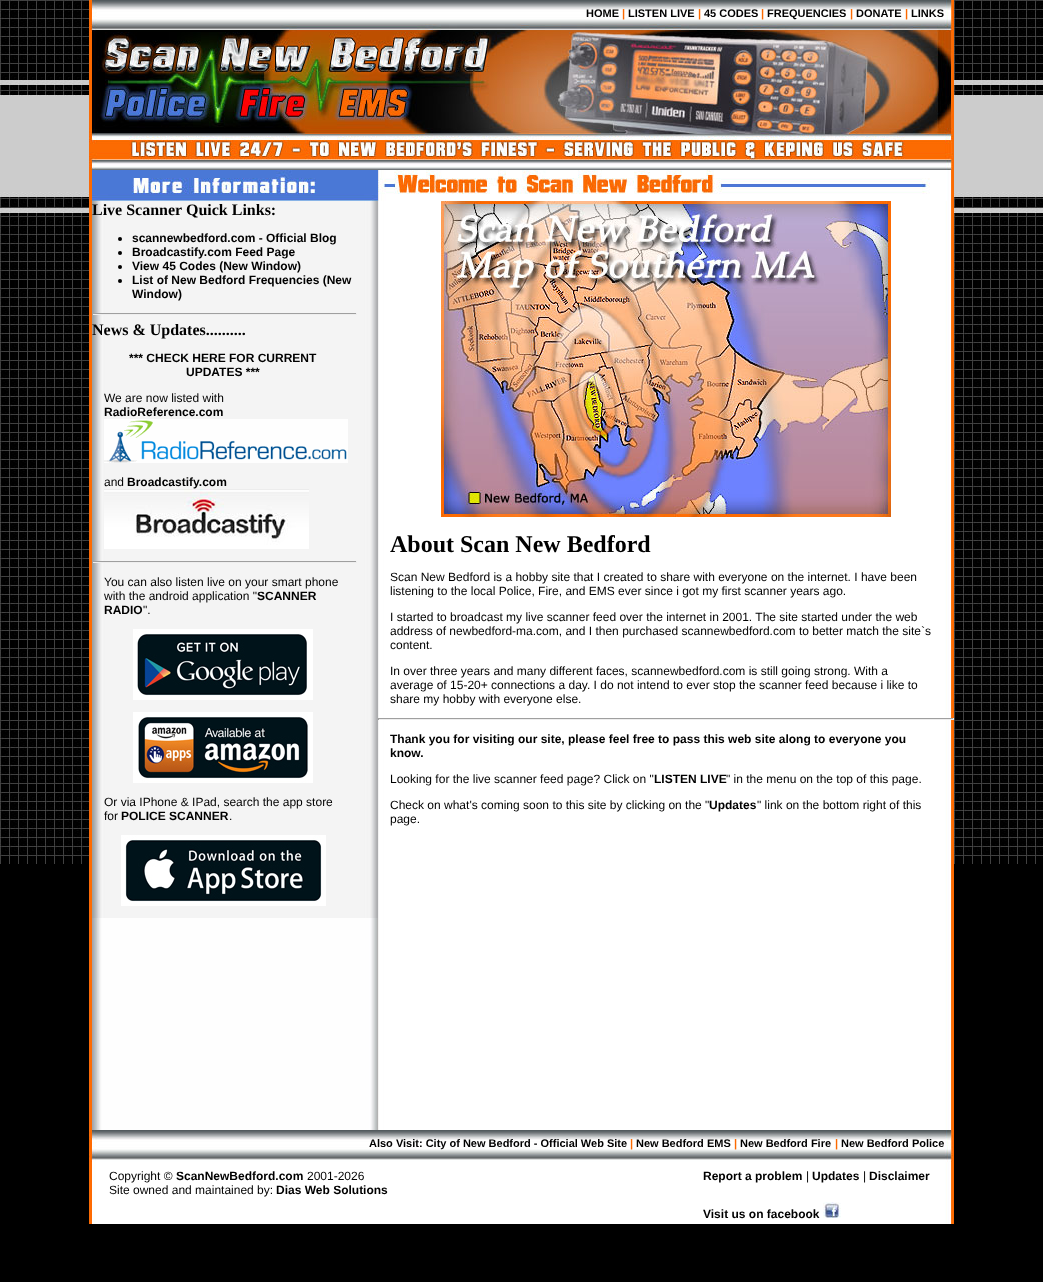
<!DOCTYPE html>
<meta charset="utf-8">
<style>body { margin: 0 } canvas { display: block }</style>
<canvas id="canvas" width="1043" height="1282"></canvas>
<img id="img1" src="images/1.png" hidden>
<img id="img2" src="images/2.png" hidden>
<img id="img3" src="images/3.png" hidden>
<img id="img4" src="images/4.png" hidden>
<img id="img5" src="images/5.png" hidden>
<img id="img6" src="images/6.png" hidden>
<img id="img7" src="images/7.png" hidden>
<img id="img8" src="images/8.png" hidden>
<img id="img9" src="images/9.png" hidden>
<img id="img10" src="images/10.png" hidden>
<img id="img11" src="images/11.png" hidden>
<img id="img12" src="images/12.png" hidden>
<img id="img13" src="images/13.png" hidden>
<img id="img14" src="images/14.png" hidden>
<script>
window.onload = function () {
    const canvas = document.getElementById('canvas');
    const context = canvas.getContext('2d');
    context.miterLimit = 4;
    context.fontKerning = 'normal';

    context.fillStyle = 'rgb(0, 0, 0)';
    context.fillRect(0, 0, 1043, 1282);
    context.drawImage(document.getElementById('img1'), 0, 0, 1043, 864);
    context.drawImage(document.getElementById('img2'), 89, 0, 865, 1224);
    context.drawImage(document.getElementById('img3'), 89, 0, 864, 170);
    context.drawImage(document.getElementById('img4'), 92, 201, 286, 717);
    context.drawImage(document.getElementById('img5'), 92, 170, 286, 31);
    context.beginPath();
    context.arc(120, 239, 2, 0, 2 * Math.PI);
    context.fill();
    context.beginPath();
    context.arc(120, 253, 2, 0, 2 * Math.PI);
    context.fill();
    context.beginPath();
    context.arc(120, 267, 2, 0, 2 * Math.PI);
    context.fill();
    context.beginPath();
    context.arc(120, 281, 2, 0, 2 * Math.PI);
    context.fill();
    context.fillStyle = 'rgb(159, 159, 159)';
    context.fillRect(92, 313, 265, 1);
    context.fillStyle = 'rgb(238, 238, 238)';
    context.fillRect(356, 313, 1, 2);
    context.fillRect(92, 314, 265, 1);
    context.fillStyle = 'rgb(159, 159, 159)';
    context.fillRect(92, 313, 1, 2);
    context.drawImage(document.getElementById('img6'), 104, 419, 244, 44);
    context.drawImage(document.getElementById('img7'), 104, 489, 205, 60);
    context.fillRect(92, 561, 265, 1);
    context.fillStyle = 'rgb(238, 238, 238)';
    context.fillRect(356, 561, 1, 2);
    context.fillRect(92, 562, 265, 1);
    context.fillStyle = 'rgb(159, 159, 159)';
    context.fillRect(92, 561, 1, 2);
    context.drawImage(document.getElementById('img8'), 133, 629, 180, 71);
    context.drawImage(document.getElementById('img9'), 133, 712, 180, 71);
    context.drawImage(document.getElementById('img10'), 121, 835, 205, 71);
    context.drawImage(document.getElementById('img11'), 378, 170, 569, 31);
    context.drawImage(document.getElementById('img12'), 441, 201, 450, 316);
    context.fillRect(378, 718, 576, 1);
    context.fillStyle = 'rgb(238, 238, 238)';
    context.fillRect(953, 718, 1, 2);
    context.fillRect(378, 719, 576, 1);
    context.fillStyle = 'rgb(159, 159, 159)';
    context.fillRect(378, 718, 1, 2);
    context.drawImage(document.getElementById('img13'), 89, 1130, 864, 94);
    context.drawImage(document.getElementById('img14'), 823, 1202, 18, 16);
    context.font = 'bold 11px Liberation Sans';
    context.fillStyle = 'rgb(0, 0, 0)';
    context.fillText('HOME', 586, 17);
    context.fillStyle = 'rgb(252, 106, 1)';
    context.fillText('|', 622, 17);
    context.fillStyle = 'rgb(0, 0, 0)';
    context.fillText('LISTEN LIVE', 628, 17);
    context.fillStyle = 'rgb(252, 106, 1)';
    context.fillText('|', 698, 17);
    context.fillStyle = 'rgb(0, 0, 0)';
    context.fillText('45 CODES', 704, 17);
    context.fillStyle = 'rgb(252, 106, 1)';
    context.fillText('|', 761, 17);
    context.fillStyle = 'rgb(0, 0, 0)';
    context.fillText('FREQUENCIES', 767, 17);
    context.fillStyle = 'rgb(252, 106, 1)';
    context.fillText('|', 850, 17);
    context.fillStyle = 'rgb(0, 0, 0)';
    context.fillText('DONATE', 856, 17);
    context.fillStyle = 'rgb(252, 106, 1)';
    context.fillText('|', 905, 17);
    context.fillStyle = 'rgb(0, 0, 0)';
    context.fillText('LINKS', 911, 17);
    context.font = 'bold 16px Liberation Serif';
    context.fillText('Live Scanner Quick Links:', 92, 215);
    context.font = 'bold 12px Liberation Sans';
    context.fillText('scannewbedford.com - Official Blog', 132, 242);
    context.fillText('Broadcastify.com Feed Page', 132, 256);
    context.fillText('View 45 Codes (New Window)', 132, 270);
    context.fillText('List of New Bedford Frequencies (New', 132, 284);
    context.fillText('Window)', 132, 298);
    context.font = 'bold 16px Liberation Serif';
    context.fillText('News & Updates..........', 92, 335);
    context.font = 'bold 12px Liberation Sans';
    context.fillText('*** CHECK HERE FOR CURRENT', 129, 362);
    context.fillText('UPDATES ***', 186, 376);
    context.font = '12px Liberation Sans';
    context.fillText('We are now listed with', 104, 402);
    context.font = 'bold 12px Liberation Sans';
    context.fillText('RadioReference.com', 104, 416);
    context.font = '12px Liberation Sans';
    context.fillText('and', 104, 486);
    context.font = 'bold 12px Liberation Sans';
    context.fillText('Broadcastify.com', 127, 486);
    context.font = '12px Liberation Sans';
    context.fillText('You can also listen live on your smart phone', 104, 586);
    context.fillText('with the android application "', 104, 600);
    context.font = 'bold 12px Liberation Sans';
    context.fillText('SCANNER', 257, 600);
    context.fillText('RADIO', 104, 614);
    context.font = '12px Liberation Sans';
    context.fillText('".', 143, 614);
    context.fillText('Or via IPhone & IPad, search the app store', 104, 806);
    context.fillText('for', 104, 820);
    context.font = 'bold 12px Liberation Sans';
    context.fillText('POLICE SCANNER', 121, 820);
    context.font = '12px Liberation Sans';
    context.fillText('.', 229, 820);
    context.font = 'bold 24px Liberation Serif';
    context.fillText('About Scan New Bedford', 390, 552);
    context.font = '12px Liberation Sans';
    context.fillText('Scan New Bedford is a hobby site that I created to share with everyone on the internet. I have been', 390, 581);
    context.fillText('listening to the local Police, Fire, and EMS ever since i got my first scanner years ago.', 390, 595);
    context.fillText('I started to broadcast my live scanner feed over the internet in 2001. The site started under the web', 390, 621);
    context.fillText('address of newbedford-ma.com, and I then purchased scannewbedford.com to better match the site`s', 390, 635);
    context.fillText('content.', 390, 649);
    context.fillText('In over three years and many different faces, scannewbedford.com is still going strong. With a', 390, 675);
    context.fillText('average of 15-20+ connections a day. I do not intend to ever stop the scanner feed because i like to', 390, 689);
    context.fillText('share my hobby with everyone else.', 390, 703);
    context.font = 'bold 12px Liberation Sans';
    context.fillText('Thank you for visiting our site, please feel free to pass this web site along to everyone you', 390, 743);
    context.fillText('know.', 390, 757);
    context.font = '12px Liberation Sans';
    context.fillText('Looking for the live scanner feed page? Click on "', 390, 783);
    context.font = 'bold 12px Liberation Sans';
    context.fillText('LISTEN LIVE', 654, 783);
    context.font = '12px Liberation Sans';
    context.fillText('" in the menu on the top of this page.', 726, 783);
    context.fillText('Check on what\'s coming soon to this site by clicking on the "', 390, 809);
    context.font = 'bold 12px Liberation Sans';
    context.fillText('Updates', 709, 809);
    context.font = '12px Liberation Sans';
    context.fillText('" link on the bottom right of this', 757, 809);
    context.fillText('page.', 390, 823);
    context.font = 'bold 11px Liberation Sans';
    context.fillText('Also Visit: City of New Bedford - Official Web Site', 369, 1147);
    context.fillStyle = 'rgb(252, 106, 1)';
    context.fillText('|', 630, 1147);
    context.fillStyle = 'rgb(0, 0, 0)';
    context.fillText('New Bedford EMS', 636, 1147);
    context.fillStyle = 'rgb(252, 106, 1)';
    context.fillText('|', 734, 1147);
    context.fillStyle = 'rgb(0, 0, 0)';
    context.fillText('New Bedford Fire', 740, 1147);
    context.fillStyle = 'rgb(252, 106, 1)';
    context.fillText('|', 835, 1147);
    context.fillStyle = 'rgb(0, 0, 0)';
    context.fillText('New Bedford Police', 841, 1147);
    context.font = '12px Liberation Sans';
    context.fillText('Copyright ©', 109, 1180);
    context.font = 'bold 12px Liberation Sans';
    context.fillText('ScanNewBedford.com', 176, 1180);
    context.font = '12px Liberation Sans';
    context.fillText('2001-2026', 307, 1180);
    context.fillText('Site owned and maintained by:', 109, 1194);
    context.font = 'bold 12px Liberation Sans';
    context.fillText('Dias Web Solutions', 276, 1194);
    context.fillText('Report a problem', 703, 1180);
    context.font = '12px Liberation Sans';
    context.fillText('|', 806, 1180);
    context.font = 'bold 12px Liberation Sans';
    context.fillText('Updates', 812, 1180);
    context.font = '12px Liberation Sans';
    context.fillText('|', 863, 1180);
    context.font = 'bold 12px Liberation Sans';
    context.fillText('Disclaimer', 869, 1180);
    context.fillText('Visit us on facebook', 703, 1218);
};
</script>
